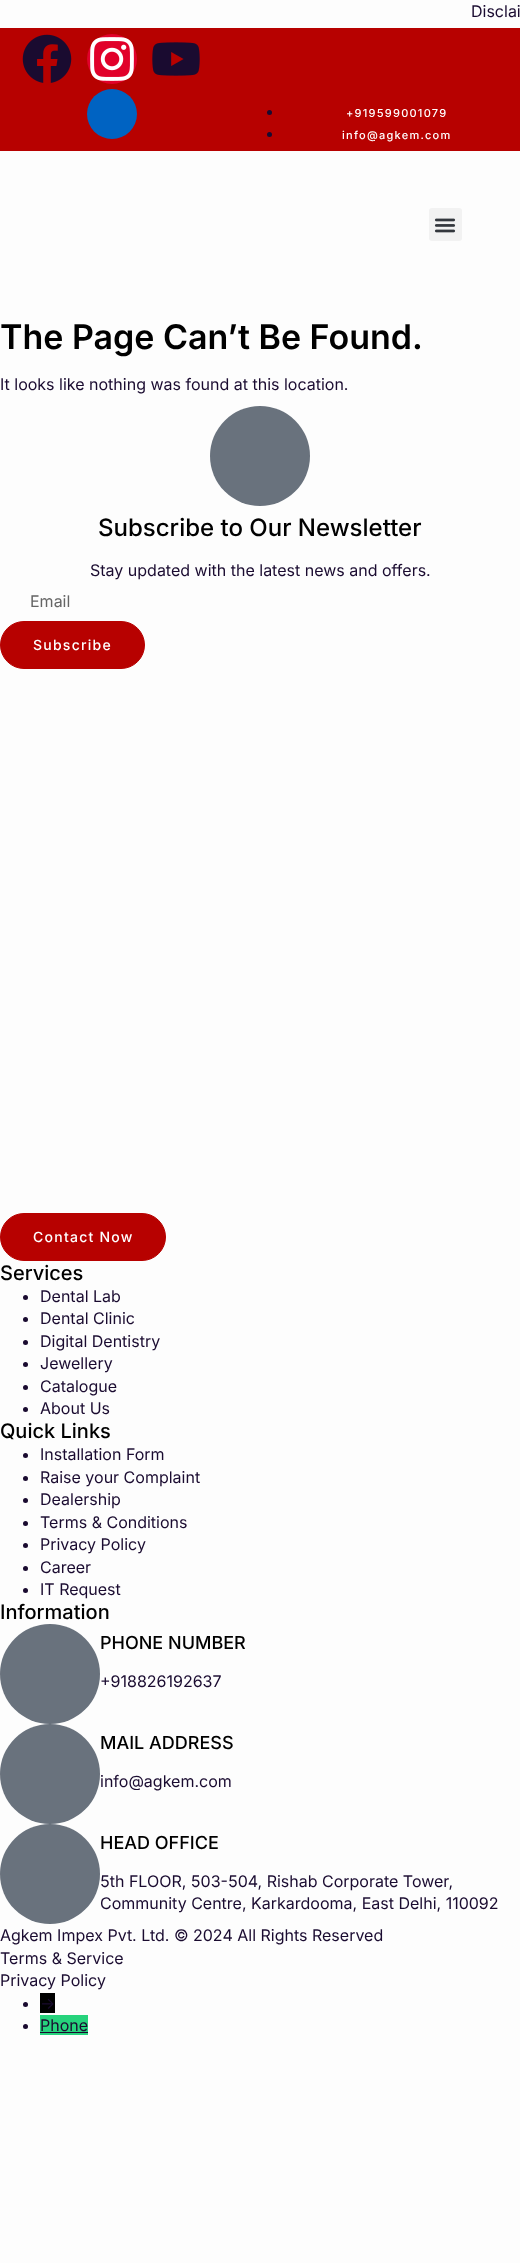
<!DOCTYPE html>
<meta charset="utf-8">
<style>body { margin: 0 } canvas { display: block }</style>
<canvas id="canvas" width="520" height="2263"></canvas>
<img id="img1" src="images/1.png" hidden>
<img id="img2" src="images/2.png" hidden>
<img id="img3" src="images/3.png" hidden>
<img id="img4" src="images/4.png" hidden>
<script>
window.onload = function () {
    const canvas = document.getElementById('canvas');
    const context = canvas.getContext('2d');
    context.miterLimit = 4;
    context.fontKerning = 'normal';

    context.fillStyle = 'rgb(253, 253, 253)';
    context.fillRect(0, 0, 520, 2263);
    context.fillStyle = 'rgb(183, 1, 0)';
    context.fillRect(0, 28, 520, 123);
    context.drawImage(document.getElementById('img1'), 22, 34, 50, 49);
    context.fillStyle = 'rgb(225, 1, 42)';
    context.beginPath();
    context.arc(112, 59, 25, 0, 2 * Math.PI);
    context.fill();
    context.drawImage(document.getElementById('img2'), 90, 37, 44, 44);
    context.drawImage(document.getElementById('img3'), 152, 42, 48, 34);
    context.fillStyle = 'rgb(0, 99, 194)';
    context.beginPath();
    context.arc(112, 114, 25, 0, 2 * Math.PI);
    context.fill();
    context.fillStyle = 'rgb(26, 11, 48)';
    context.beginPath();
    context.arc(269.5, 112.5, 2.5, 0, 2 * Math.PI);
    context.fill();
    context.beginPath();
    context.arc(269.5, 134.5, 2.5, 0, 2 * Math.PI);
    context.fill();
    context.fillStyle = 'rgb(242, 242, 242)';
    context.beginPath();
    context.roundRect(429, 208, 33, 33, 3);
    context.fill();
    context.drawImage(document.getElementById('img4'), 434, 218, 22, 15);
    context.fillStyle = 'rgb(105, 114, 125)';
    context.beginPath();
    context.arc(260, 456, 50, 0, 2 * Math.PI);
    context.fill();
    context.fillStyle = 'rgb(183, 1, 0)';
    context.beginPath();
    context.roundRect(0.5, 621.5, 144, 47, 23.5);
    context.fill();
    context.strokeStyle = 'rgb(183, 1, 0)';
    context.stroke();
    context.beginPath();
    context.roundRect(0.5, 1213.5, 165, 47, 23.5);
    context.fill();
    context.stroke();
    context.fillStyle = 'rgb(26, 11, 48)';
    context.beginPath();
    context.arc(25.5, 1297.5, 2.5, 0, 2 * Math.PI);
    context.fill();
    context.beginPath();
    context.arc(25.5, 1319.5, 2.5, 0, 2 * Math.PI);
    context.fill();
    context.beginPath();
    context.arc(25.5, 1342.5, 2.5, 0, 2 * Math.PI);
    context.fill();
    context.beginPath();
    context.arc(25.5, 1364.5, 2.5, 0, 2 * Math.PI);
    context.fill();
    context.beginPath();
    context.arc(25.5, 1387.5, 2.5, 0, 2 * Math.PI);
    context.fill();
    context.beginPath();
    context.arc(25.5, 1409.5, 2.5, 0, 2 * Math.PI);
    context.fill();
    context.beginPath();
    context.arc(25.5, 1455.5, 2.5, 0, 2 * Math.PI);
    context.fill();
    context.beginPath();
    context.arc(25.5, 1478.5, 2.5, 0, 2 * Math.PI);
    context.fill();
    context.beginPath();
    context.arc(25.5, 1500.5, 2.5, 0, 2 * Math.PI);
    context.fill();
    context.beginPath();
    context.arc(25.5, 1523.5, 2.5, 0, 2 * Math.PI);
    context.fill();
    context.beginPath();
    context.arc(25.5, 1545.5, 2.5, 0, 2 * Math.PI);
    context.fill();
    context.beginPath();
    context.arc(25.5, 1568.5, 2.5, 0, 2 * Math.PI);
    context.fill();
    context.beginPath();
    context.arc(25.5, 1590.5, 2.5, 0, 2 * Math.PI);
    context.fill();
    context.fillStyle = 'rgb(105, 114, 125)';
    context.beginPath();
    context.arc(50, 1674, 50, 0, 2 * Math.PI);
    context.fill();
    context.beginPath();
    context.arc(50, 1774, 50, 0, 2 * Math.PI);
    context.fill();
    context.beginPath();
    context.arc(50, 1874, 50, 0, 2 * Math.PI);
    context.fill();
    context.fillStyle = 'rgb(26, 11, 48)';
    context.beginPath();
    context.arc(25.5, 2004.5, 2.5, 0, 2 * Math.PI);
    context.fill();
    context.fillStyle = 'rgb(0, 0, 0)';
    context.fillRect(40, 1993, 15, 20);
    context.fillStyle = 'rgb(26, 11, 48)';
    context.beginPath();
    context.arc(25.5, 2026.5, 2.5, 0, 2 * Math.PI);
    context.fill();
    context.fillStyle = 'rgb(38, 211, 124)';
    context.fillRect(40, 2015, 48, 20);
    context.fillStyle = 'rgb(26, 11, 48)';
    context.fillRect(40, 2032, 48, 1);
    context.font = '16px Inter';
    context.fillText('Disclai', 471, 17);
    context.letterSpacing = '1.25px';
    context.font = '500 11px Inter';
    context.fillStyle = 'rgb(255, 255, 255)';
    context.fillText('+919599001079', 346, 117);
    context.fillText('info@agkem.com', 342, 139);
    context.letterSpacing = '0px';
    context.font = '600 34px Inter';
    context.fillStyle = 'rgb(0, 0, 0)';
    context.fillText('The Page Can’t Be Found.', 0, 349);
    context.font = '16px Inter';
    context.fillStyle = 'rgb(26, 11, 48)';
    context.fillText('It looks like nothing was found at this location.', 0, 390);
    context.font = '500 24px Inter';
    context.fillStyle = 'rgb(0, 0, 0)';
    context.fillText('Subscribe to Our Newsletter', 98, 536);
    context.font = '16px Inter';
    context.fillStyle = 'rgb(26, 11, 48)';
    context.fillText('Stay updated with the latest news and offers.', 90, 576);
    context.fillStyle = 'rgb(101, 101, 101)';
    context.fillText('Email', 30, 607);
    context.letterSpacing = '1.25px';
    context.font = '500 14px Inter';
    context.fillStyle = 'rgb(255, 255, 255)';
    context.fillText('Subscribe', 33, 650);
    context.fillText('Contact Now', 33, 1242);
    context.letterSpacing = '0px';
    context.font = '500 20px Inter';
    context.fillStyle = 'rgb(0, 0, 0)';
    context.fillText('Services', 0, 1280);
    context.font = '16px Inter';
    context.fillStyle = 'rgb(26, 11, 48)';
    context.fillText('Dental Lab', 40, 1302);
    context.fillText('Dental Clinic', 40, 1324);
    context.fillText('Digital Dentistry', 40, 1347);
    context.fillText('Jewellery', 40, 1369);
    context.fillText('Catalogue', 40, 1392);
    context.fillText('About Us', 40, 1414);
    context.font = '500 20px Inter';
    context.fillStyle = 'rgb(0, 0, 0)';
    context.fillText('Quick Links', 0, 1438);
    context.font = '16px Inter';
    context.fillStyle = 'rgb(26, 11, 48)';
    context.fillText('Installation Form', 40, 1460);
    context.fillText('Raise your Complaint', 40, 1483);
    context.fillText('Dealership', 40, 1505);
    context.fillText('Terms & Conditions', 40, 1528);
    context.fillText('Privacy Policy', 40, 1550);
    context.fillText('Career', 40, 1573);
    context.fillText('IT Request', 40, 1595);
    context.font = '500 20px Inter';
    context.fillStyle = 'rgb(0, 0, 0)';
    context.fillText('Information', 0, 1619);
    context.font = '500 18px Inter';
    context.fillText('PHONE NUMBER', 100, 1649);
    context.font = '16px Inter';
    context.fillStyle = 'rgb(26, 11, 48)';
    context.fillText('+918826192637', 100, 1687);
    context.font = '500 18px Inter';
    context.fillStyle = 'rgb(0, 0, 0)';
    context.fillText('MAIL ADDRESS', 100, 1749);
    context.font = '16px Inter';
    context.fillStyle = 'rgb(26, 11, 48)';
    context.fillText('info@agkem.com', 100, 1787);
    context.font = '500 18px Inter';
    context.fillStyle = 'rgb(0, 0, 0)';
    context.fillText('HEAD OFFICE', 100, 1849);
    context.font = '16px Inter';
    context.fillStyle = 'rgb(26, 11, 48)';
    context.fillText('5th FLOOR, 503-504, Rishab Corporate Tower,', 100, 1887);
    context.fillText('Community Centre, Karkardooma, East Delhi, 110092', 100, 1909);
    context.fillText('Agkem Impex Pvt. Ltd. © 2024 All Rights Reserved', 0, 1941);
    context.fillText('Terms & Service', 0, 1964);
    context.fillText('Privacy Policy', 0, 1986);
    context.fillText('→', 40, 2009);
    context.fillText('Phone', 40, 2031);
};
</script>
